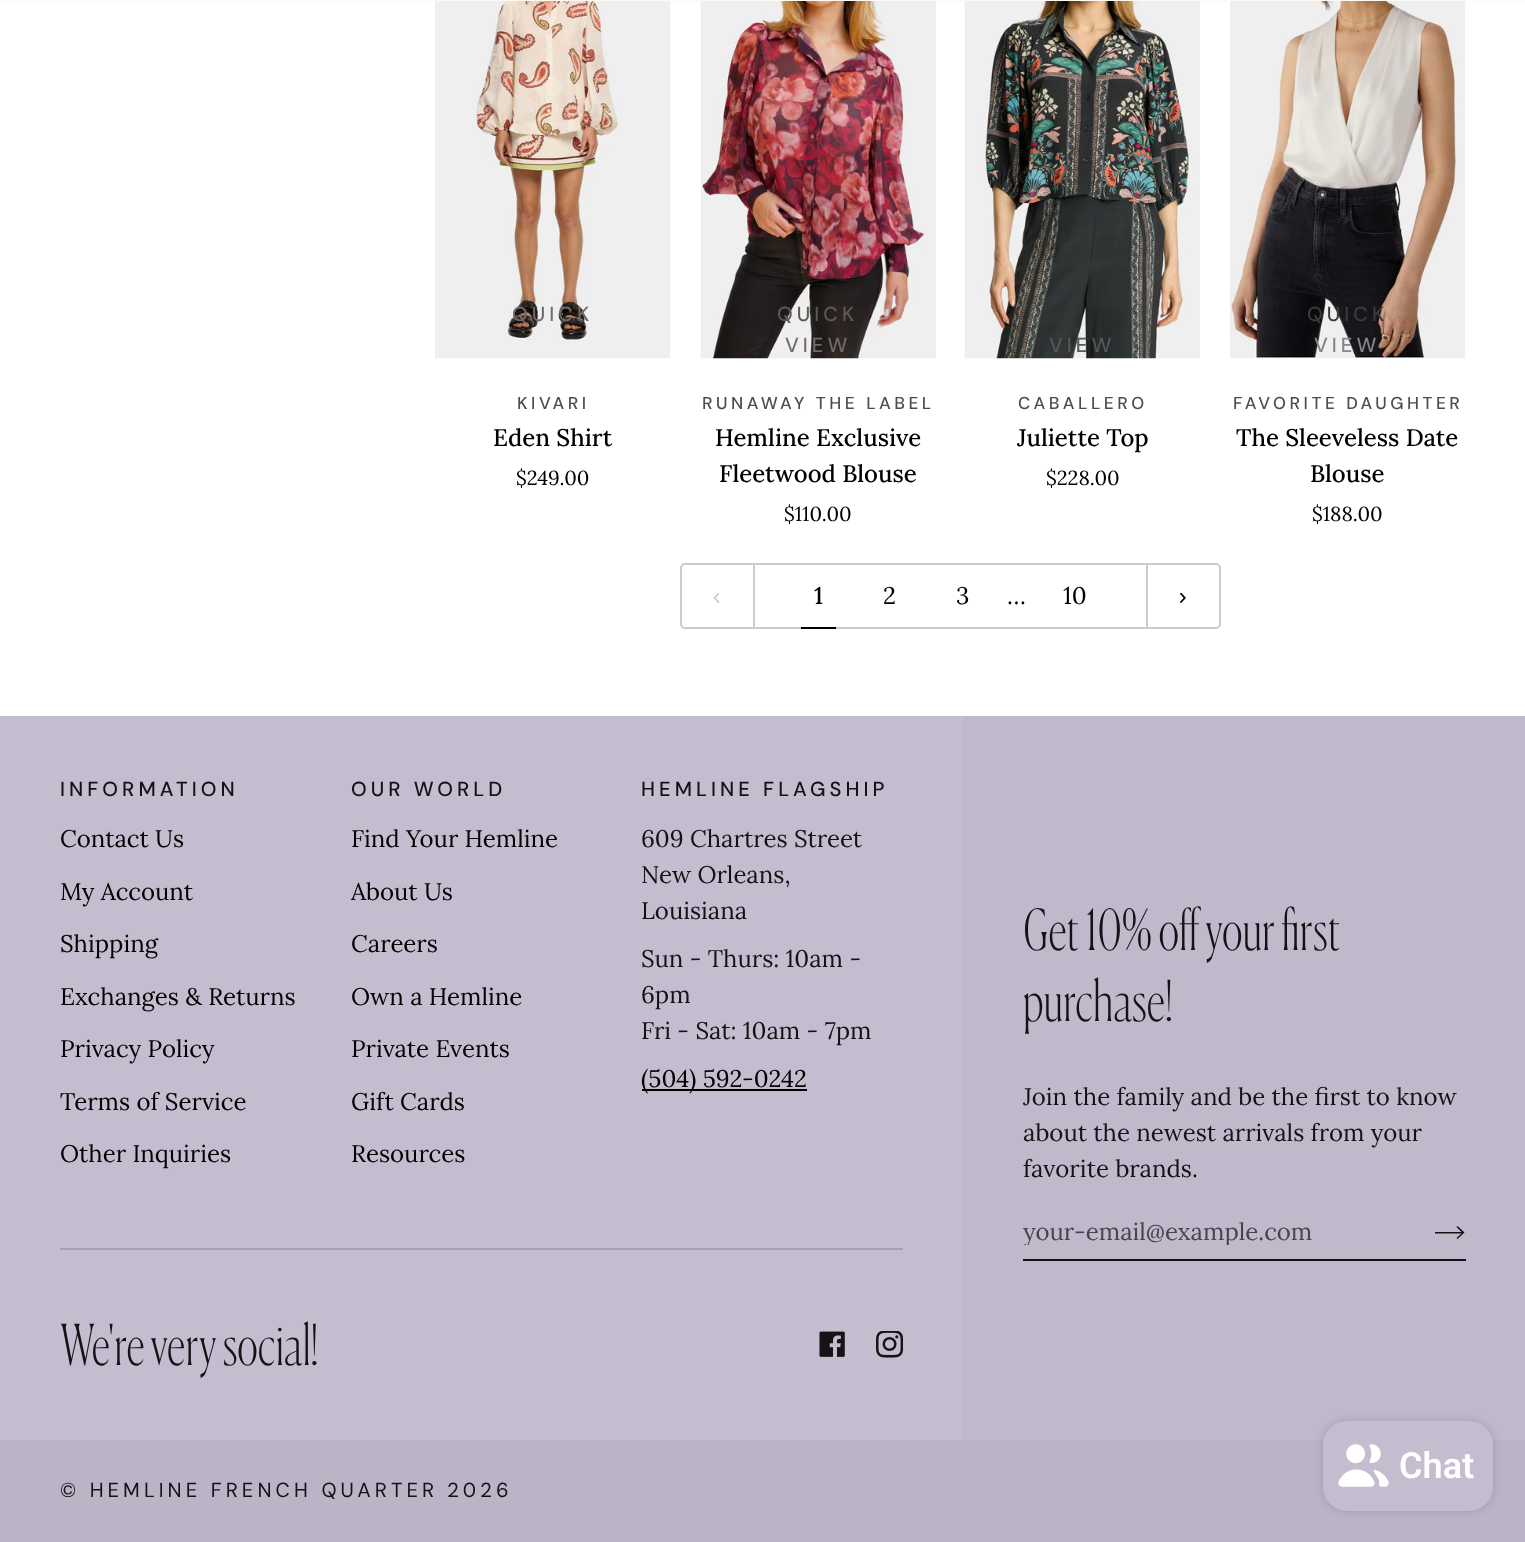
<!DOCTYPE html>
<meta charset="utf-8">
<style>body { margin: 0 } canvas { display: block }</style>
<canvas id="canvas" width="1525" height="1542"></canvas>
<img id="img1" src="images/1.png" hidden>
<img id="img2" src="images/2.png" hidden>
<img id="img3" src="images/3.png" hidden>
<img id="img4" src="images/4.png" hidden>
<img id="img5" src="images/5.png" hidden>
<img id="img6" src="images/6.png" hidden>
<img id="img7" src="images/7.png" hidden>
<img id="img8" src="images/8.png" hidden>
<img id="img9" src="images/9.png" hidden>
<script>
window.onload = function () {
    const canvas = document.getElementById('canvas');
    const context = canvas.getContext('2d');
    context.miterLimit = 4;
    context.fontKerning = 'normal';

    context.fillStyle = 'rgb(255, 255, 255)';
    context.fillRect(0, 0, 1525, 1542);
    context.fillStyle = 'rgb(255, 249, 244)';
    context.fillRect(0, 0, 1525, 1);
    context.drawImage(document.getElementById('img1'), 435, 1, 236, 358);
    context.drawImage(document.getElementById('img2'), 700, 1, 236, 358);
    context.drawImage(document.getElementById('img3'), 964, 1, 236, 358);
    context.drawImage(document.getElementById('img4'), 1230, 1, 236, 358);
    context.beginPath();
    context.roundRect(681, 564, 73, 64, [4, 0, 0, 4]);
    context.strokeStyle = 'rgb(204, 204, 204)';
    context.lineWidth = 2;
    context.stroke();
    context.drawImage(document.getElementById('img5'), 713, 593, 7, 10);
    context.fillStyle = 'rgb(204, 204, 204)';
    context.fillRect(755, 563, 30, 2);
    context.fillRect(755, 627, 30, 2);
    context.fillRect(785, 627, 361, 2);
    context.fillStyle = 'rgb(0, 0, 0)';
    context.fillRect(801, 627, 35, 2);
    context.fillStyle = 'rgb(204, 204, 204)';
    context.fillRect(785, 563, 361, 2);
    context.beginPath();
    context.roundRect(1147, 564, 73, 64, [0, 4, 4, 0]);
    context.stroke();
    context.drawImage(document.getElementById('img6'), 1179, 593, 7, 10);
    context.fillStyle = 'rgb(198, 188, 208)';
    context.fillRect(0, 716, 963, 724);
    context.fillStyle = 'rgb(0, 0, 0)';
    context.fillRect(642, 1089, 165, 2);
    context.fillStyle = 'rgb(168, 160, 177)';
    context.fillRect(60, 1248, 843, 2);
    context.drawImage(document.getElementById('img7'), 819, 1331, 26, 26);
    context.drawImage(document.getElementById('img8'), 876, 1331, 27, 27);
    context.fillStyle = 'rgb(194, 184, 204)';
    context.fillRect(963, 716, 562, 724);
    context.fillStyle = 'rgb(19, 18, 20)';
    context.fillRect(1023, 1259, 443, 2);
    context.beginPath();
    context.moveTo(1456.5, 1227);
    context.lineTo(1457.5, 1226);
    context.lineTo(1464.5, 1232.5);
    context.lineTo(1457.5, 1239);
    context.lineTo(1456.5, 1238);
    context.lineTo(1461.5, 1233.5);
    context.lineTo(1435, 1233.5);
    context.lineTo(1435, 1232);
    context.lineTo(1461.5, 1232);
    context.closePath();
    context.fill();
    context.fillStyle = 'rgb(189, 179, 199)';
    context.fillRect(0, 1440, 1525, 102);
    context.fillStyle = 'rgba(0, 0, 0, 0.15)';
    context.filter = 'blur(4px)';
    context.beginPath();
    context.roundRect(1323, 1421, 170, 90, 24);
    context.fill();
    context.filter = 'none';
    context.fillStyle = 'rgb(198, 188, 208)';
    context.beginPath();
    context.roundRect(1323, 1421, 170, 90, 24);
    context.fill();
    context.drawImage(document.getElementById('img9'), 1338, 1444, 51, 43);
    context.letterSpacing = '4.05px';
    context.font = '500 20.25px DM Sans';
    context.fillStyle = 'rgb(111, 107, 104)';
    context.fillText('QUICK', 512, 321);
    context.letterSpacing = '3.5px';
    context.font = '500 17.25px "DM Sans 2"';
    context.fillStyle = 'rgb(77, 77, 77)';
    context.fillText('KIVARI', 517, 409);
    context.letterSpacing = '0px';
    context.font = '500 24px Lora';
    context.fillStyle = 'rgb(0, 0, 0)';
    context.fillText('Eden Shirt', 493, 446);
    context.font = '20.25px Lora';
    context.fillText('$249.00', 516, 485);
    context.letterSpacing = '4.05px';
    context.font = '500 20.25px DM Sans';
    context.fillStyle = 'rgb(93, 89, 88)';
    context.fillText('QUICK', 777, 321);
    context.fillStyle = 'rgb(111, 107, 104)';
    context.fillText('VIEW', 785, 352);
    context.letterSpacing = '3.5px';
    context.font = '500 17.25px "DM Sans 2"';
    context.fillStyle = 'rgb(77, 77, 77)';
    context.fillText('RUNAWAY THE LABEL', 702, 409);
    context.letterSpacing = '0px';
    context.font = '500 24px Lora';
    context.fillStyle = 'rgb(0, 0, 0)';
    context.fillText('Hemline Exclusive', 715, 446);
    context.fillText('Fleetwood Blouse', 719, 482);
    context.font = '20.25px Lora';
    context.fillText('$110.00', 784, 521);
    context.letterSpacing = '4.05px';
    context.font = '500 20.25px DM Sans';
    context.fillStyle = 'rgb(85, 88, 89)';
    context.fillText('VIEW', 1049, 352);
    context.letterSpacing = '3.5px';
    context.font = '500 17.25px "DM Sans 2"';
    context.fillStyle = 'rgb(77, 77, 77)';
    context.fillText('CABALLERO', 1018, 409);
    context.letterSpacing = '0px';
    context.font = '500 24px Lora';
    context.fillStyle = 'rgb(0, 0, 0)';
    context.fillText('Juliette Top', 1017, 446);
    context.font = '20.25px Lora';
    context.fillText('$228.00', 1046, 485);
    context.letterSpacing = '4.05px';
    context.font = '500 20.25px DM Sans';
    context.fillStyle = 'rgb(62, 59, 61)';
    context.fillText('QUICK', 1307, 321);
    context.fillStyle = 'rgb(132, 131, 134)';
    context.fillText('VIEW', 1314, 352);
    context.letterSpacing = '3.5px';
    context.font = '500 17.25px "DM Sans 2"';
    context.fillStyle = 'rgb(77, 77, 77)';
    context.fillText('FAVORITE DAUGHTER', 1233, 409);
    context.letterSpacing = '0px';
    context.font = '500 24px Lora';
    context.fillStyle = 'rgb(0, 0, 0)';
    context.fillText('The Sleeveless Date', 1236, 446);
    context.fillText('Blouse', 1310, 482);
    context.font = '20.25px Lora';
    context.fillText('$188.00', 1312, 521);
    context.font = '500 24px Lora';
    context.fillText('1', 814, 604);
    context.font = '24px Lora';
    context.fillText('2', 883, 604);
    context.fillText('3', 956, 604);
    context.fillText('…', 1007, 604);
    context.fillText('10', 1063, 604);
    context.letterSpacing = '4.05px';
    context.font = '500 20.25px DM Sans';
    context.fillStyle = 'rgb(19, 18, 20)';
    context.fillText('INFORMATION', 60, 796);
    context.letterSpacing = '0px';
    context.font = '24px Lora';
    context.fillStyle = 'rgb(0, 0, 0)';
    context.fillText('Contact Us', 60, 847);
    context.fillText('My Account', 60, 900);
    context.fillText('Shipping', 60, 952);
    context.fillText('Exchanges & Returns', 60, 1005);
    context.fillText('Privacy Policy', 60, 1057);
    context.fillText('Terms of Service', 60, 1110);
    context.fillText('Other Inquiries', 60, 1162);
    context.letterSpacing = '4.05px';
    context.font = '500 20.25px DM Sans';
    context.fillStyle = 'rgb(19, 18, 20)';
    context.fillText('OUR WORLD', 351, 796);
    context.letterSpacing = '0px';
    context.font = '24px Lora';
    context.fillStyle = 'rgb(0, 0, 0)';
    context.fillText('Find Your Hemline', 351, 847);
    context.fillText('About Us', 351, 900);
    context.fillText('Careers', 351, 952);
    context.fillText('Own a Hemline', 351, 1005);
    context.fillText('Private Events', 351, 1057);
    context.fillText('Gift Cards', 351, 1110);
    context.fillText('Resources', 351, 1162);
    context.letterSpacing = '4.05px';
    context.font = '500 20.25px DM Sans';
    context.fillStyle = 'rgb(19, 18, 20)';
    context.fillText('HEMLINE FLAGSHIP', 641, 796);
    context.letterSpacing = '0px';
    context.font = '24px Lora';
    context.fillText('609 Chartres Street', 641, 847);
    context.fillText('New Orleans,', 641, 883);
    context.fillText('Louisiana', 641, 919);
    context.fillText('Sun - Thurs: 10am -', 641, 967);
    context.fillText('6pm', 641, 1003);
    context.fillText('Fri - Sat: 10am - 7pm', 641, 1039);
    context.fillStyle = 'rgb(0, 0, 0)';
    context.fillText('(504) 592-0242', 641, 1087);
    context.font = '100 56.25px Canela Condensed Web';
    context.fillStyle = 'rgb(19, 18, 20)';
    context.fillText('We\'re very social!', 60, 1365);
    context.fillText('Get 10% off your first', 1023, 950);
    context.fillText('purchase!', 1023, 1021);
    context.font = '24px Lora';
    context.fillText('Join the family and be the first to know', 1023, 1105);
    context.fillText('about the newest arrivals from your', 1023, 1141);
    context.fillText('favorite brands.', 1023, 1177);
    context.save();
    context.beginPath();
    context.rect(1023, 1215, 348, 30);
    context.clip();
    context.fillStyle = 'rgb(72, 68, 75)';
    context.fillText('your-email@example.com', 1023, 1240);
    context.restore();
    context.font = '600 36px Roboto';
    context.fillStyle = 'rgb(255, 255, 255)';
    context.fillText('Chat', 1399, 1478);
    context.letterSpacing = '4.05px';
    context.font = '20.25px DM Sans';
    context.fillStyle = 'rgb(19, 18, 20)';
    context.fillText('© HEMLINE FRENCH QUARTER', 60, 1497);
    context.fillText('2026', 447, 1497);
};
</script>
